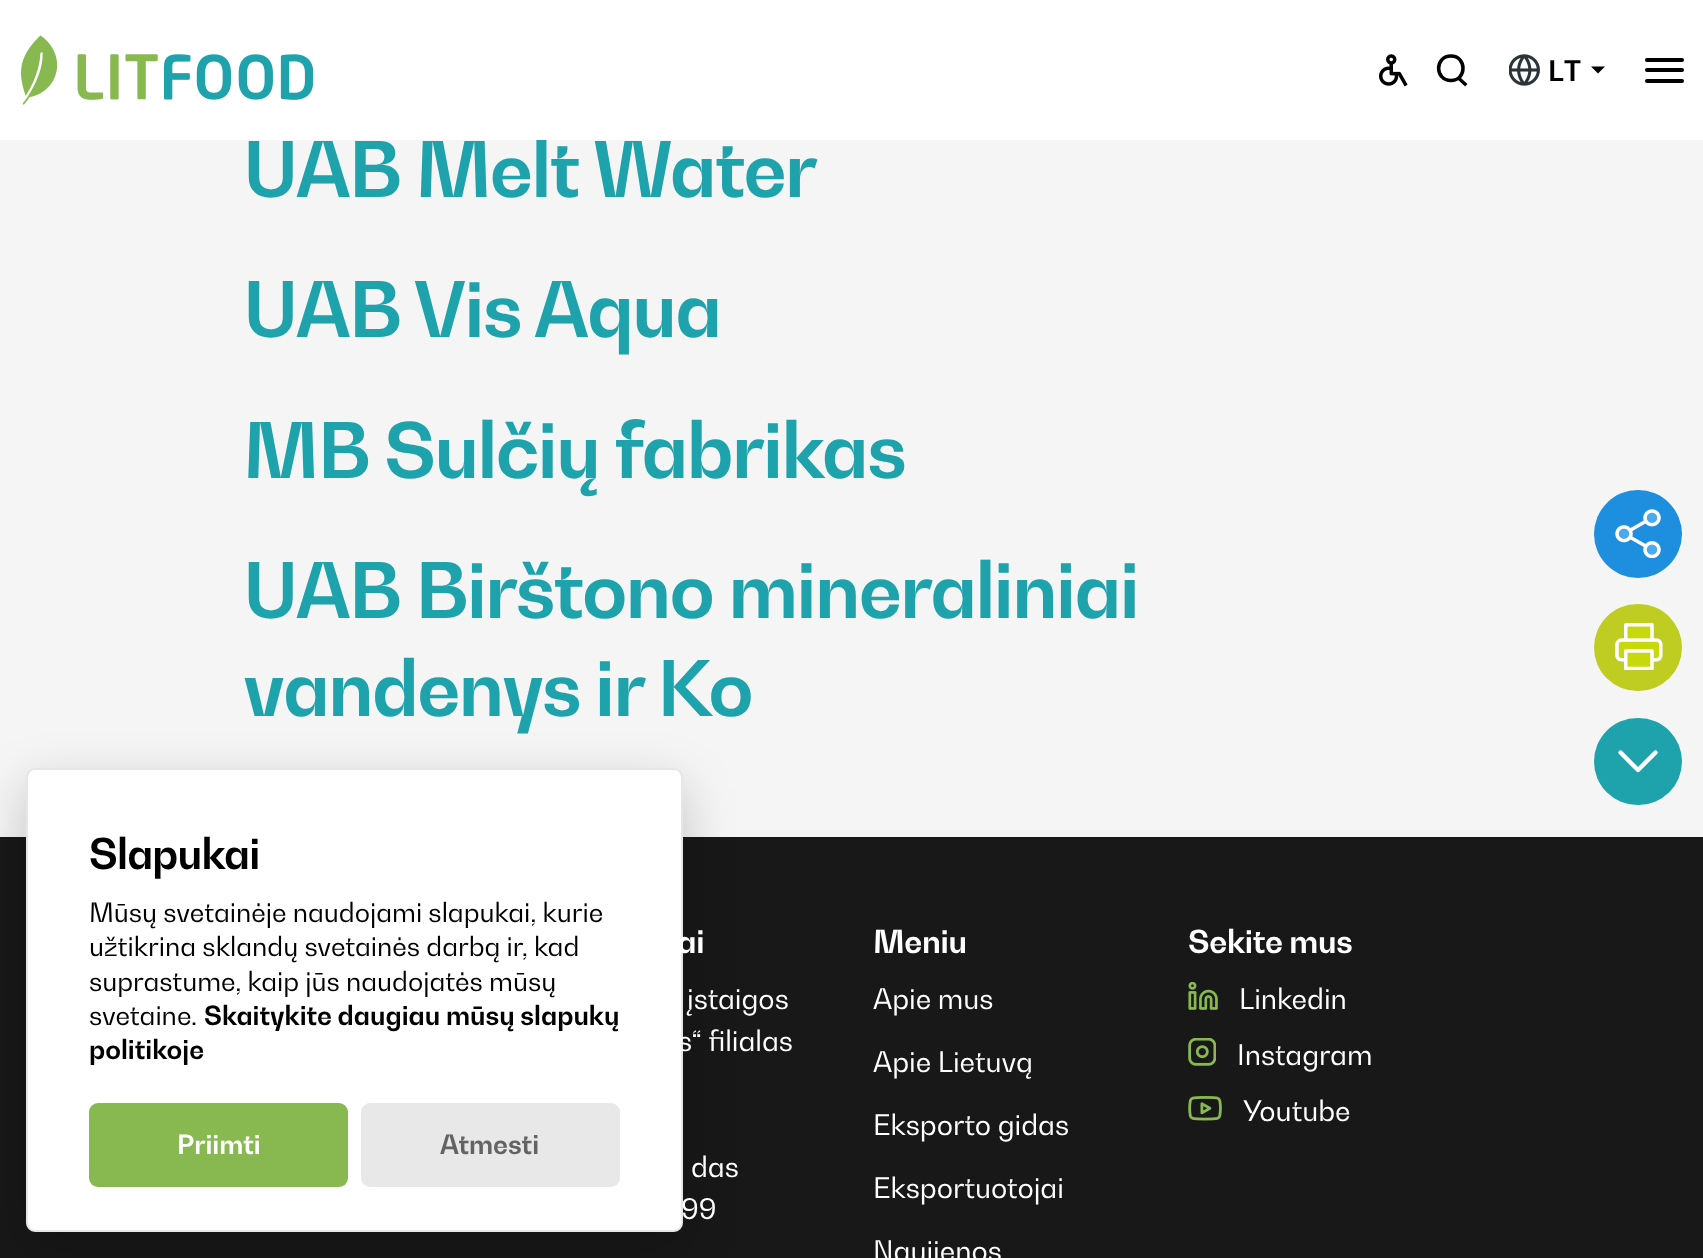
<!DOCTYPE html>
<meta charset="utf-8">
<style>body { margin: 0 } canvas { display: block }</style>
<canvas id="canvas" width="1703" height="1258"></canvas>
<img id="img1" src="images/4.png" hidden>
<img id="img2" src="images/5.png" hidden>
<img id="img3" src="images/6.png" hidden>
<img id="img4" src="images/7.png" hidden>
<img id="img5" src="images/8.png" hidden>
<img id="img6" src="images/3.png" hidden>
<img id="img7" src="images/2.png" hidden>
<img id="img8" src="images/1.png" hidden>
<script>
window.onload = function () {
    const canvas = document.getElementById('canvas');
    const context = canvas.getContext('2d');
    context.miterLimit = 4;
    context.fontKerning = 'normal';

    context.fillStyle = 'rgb(245, 245, 245)';
    context.fillRect(0, 0, 1703, 1258);
    context.fillStyle = 'rgb(30, 142, 223)';
    context.beginPath();
    context.arc(1638, 534, 44, 0, 2 * Math.PI);
    context.fill();
    context.drawImage(document.getElementById('img1'), 1615, 509, 46, 49);
    context.fillStyle = 'rgb(191, 205, 34)';
    context.beginPath();
    context.roundRect(1594, 604, 88, 87, 43.5);
    context.fill();
    context.drawImage(document.getElementById('img2'), 1615, 623, 48, 47);
    context.fillStyle = 'rgb(30, 163, 173)';
    context.beginPath();
    context.roundRect(1594, 718, 88, 87, 43.5);
    context.fill();
    context.beginPath();
    context.moveTo(1620.5, 752.5);
    context.lineTo(1638, 770);
    context.lineTo(1655.5, 752.5);
    context.strokeStyle = 'rgb(255, 255, 255)';
    context.lineWidth = 4.4;
    context.lineCap = 'round';
    context.lineJoin = 'round';
    context.stroke();
    context.fillStyle = 'rgb(24, 24, 24)';
    context.fillRect(0, 837, 1703, 421);
    context.fillStyle = 'rgba(2, 2, 3, 0.2)';
    context.filter = 'blur(26px)';
    context.beginPath();
    context.roundRect(26, 786, 657, 464, 9);
    context.fill();
    context.filter = 'none';
    context.fillStyle = 'rgb(255, 255, 255)';
    context.beginPath();
    context.roundRect(27, 769, 655, 462, 8);
    context.fill();
    context.strokeStyle = 'rgb(230, 230, 230)';
    context.lineWidth = 2;
    context.lineJoin = 'miter';
    context.stroke();
    context.fillStyle = 'rgb(136, 185, 80)';
    context.beginPath();
    context.roundRect(89, 1103, 259, 84, 9);
    context.fill();
    context.fillStyle = 'rgb(232, 232, 232)';
    context.beginPath();
    context.roundRect(361, 1103, 259, 84, 9);
    context.fill();
    context.drawImage(document.getElementById('img3'), 1188, 982, 30, 28);
    context.drawImage(document.getElementById('img4'), 1188, 1038, 28, 28);
    context.drawImage(document.getElementById('img5'), 1188, 1096, 34, 25);
    context.letterSpacing = '-1.5px';
    context.font = 'bold 75.75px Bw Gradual';
    context.fillStyle = 'rgb(30, 163, 173)';
    context.fillText('UAB Melt Water', 243, 197);
    context.fillStyle = 'rgb(255, 255, 255)';
    context.fillRect(0, 0, 1703, 140);
    context.fillStyle = 'rgb(0, 0, 0)';
    context.beginPath();
    context.roundRect(1645, 79, 39, 4, 2);
    context.fill();
    context.beginPath();
    context.roundRect(1645, 58, 39, 4, 2);
    context.fill();
    context.beginPath();
    context.moveTo(1591, 66.5);
    context.lineTo(1605, 66.5);
    context.lineTo(1598, 73.5);
    context.closePath();
    context.fill();
    context.letterSpacing = '3px';
    context.font = 'bold 28px Bw Gradual';
    context.fillText('LT', 1548, 81);
    context.drawImage(document.getElementById('img6'), 1509, 54, 31, 32);
    context.beginPath();
    context.moveTo(1451, 80.5);
    context.bezierCurveTo(1467, 80.5, 1467, 56, 1451, 56);
    context.bezierCurveTo(1434.5, 56, 1434.5, 80.5, 1451, 80.5);
    context.closePath();
    context.strokeStyle = 'rgb(0, 0, 0)';
    context.lineWidth = 3.5;
    context.lineJoin = 'round';
    context.stroke();
    context.beginPath();
    context.moveTo(1465, 84);
    context.lineTo(1459.5, 79);
    context.lineCap = 'square';
    context.stroke();
    context.drawImage(document.getElementById('img7'), 1379, 54, 29, 33);
    context.beginPath();
    context.roundRect(1645, 68, 39, 4, 2);
    context.fill();
    context.drawImage(document.getElementById('img8'), 21, 35, 292, 70);
    context.letterSpacing = '-1.5px';
    context.font = 'bold 75.75px Bw Gradual';
    context.fillStyle = 'rgb(30, 163, 173)';
    context.fillText('UAB Vis Aqua', 243, 337);
    context.fillText('MB Sulčių fabrikas', 243, 478);
    context.fillText('UAB Birštono mineraliniai', 243, 618);
    context.fillText('vandenys ir Ko', 243, 716);
    context.letterSpacing = '-0.75px';
    context.font = 'bold 42px Bw Gradual';
    context.fillStyle = 'rgb(0, 0, 0)';
    context.fillText('Slapukai', 89, 869);
    context.letterSpacing = '0px';
    context.font = '26.25px Bw Gradual';
    context.fillText('Mūsų svetainėje naudojami slapukai, kurie', 89, 922);
    context.fillText('užtikrina sklandų svetainės darbą ir, kad', 89, 956);
    context.fillText('suprastume, kaip jūs naudojatės mūsų', 89, 991);
    context.fillText('svetaine.', 89, 1025);
    context.font = 'bold 26.25px Bw Gradual';
    context.fillText('Skaitykite daugiau mūsų slapukų', 204, 1025);
    context.fillText('politikoje', 89, 1059);
    context.fillStyle = 'rgb(255, 255, 255)';
    context.fillText('Priimti', 177, 1154);
    context.fillStyle = 'rgb(99, 99, 99)';
    context.fillText('Atmesti', 440, 1154);
    context.letterSpacing = '-0.25px';
    context.font = 'bold 31.5px Bw Gradual';
    context.fillStyle = 'rgb(255, 255, 255)';
    context.fillText('ai', 677, 953);
    context.letterSpacing = '0px';
    context.font = '28px Bw Gradual';
    context.fillText('įstaigos', 687, 1009);
    context.fillText('s“ filialas', 678, 1051);
    context.fillText('das', 691, 1177);
    context.fillText('99', 681, 1219);
    context.letterSpacing = '-0.25px';
    context.font = 'bold 31.5px Bw Gradual';
    context.fillText('Meniu', 873, 953);
    context.letterSpacing = '0px';
    context.font = '28px Bw Gradual';
    context.fillText('Apie mus', 873, 1009);
    context.fillText('Apie Lietuvą', 873, 1072);
    context.fillText('Eksporto gidas', 873, 1135);
    context.fillText('Eksportuotojai', 873, 1198);
    context.fillText('Naujienos', 873, 1261);
    context.letterSpacing = '-0.25px';
    context.font = 'bold 31.5px Bw Gradual';
    context.fillText('Sekite mus', 1188, 953);
    context.letterSpacing = '0px';
    context.font = '28px Bw Gradual';
    context.fillText('Linkedin', 1239, 1009);
    context.fillText('Instagram', 1237, 1065);
    context.fillText('Youtube', 1243, 1121);
};
</script>
